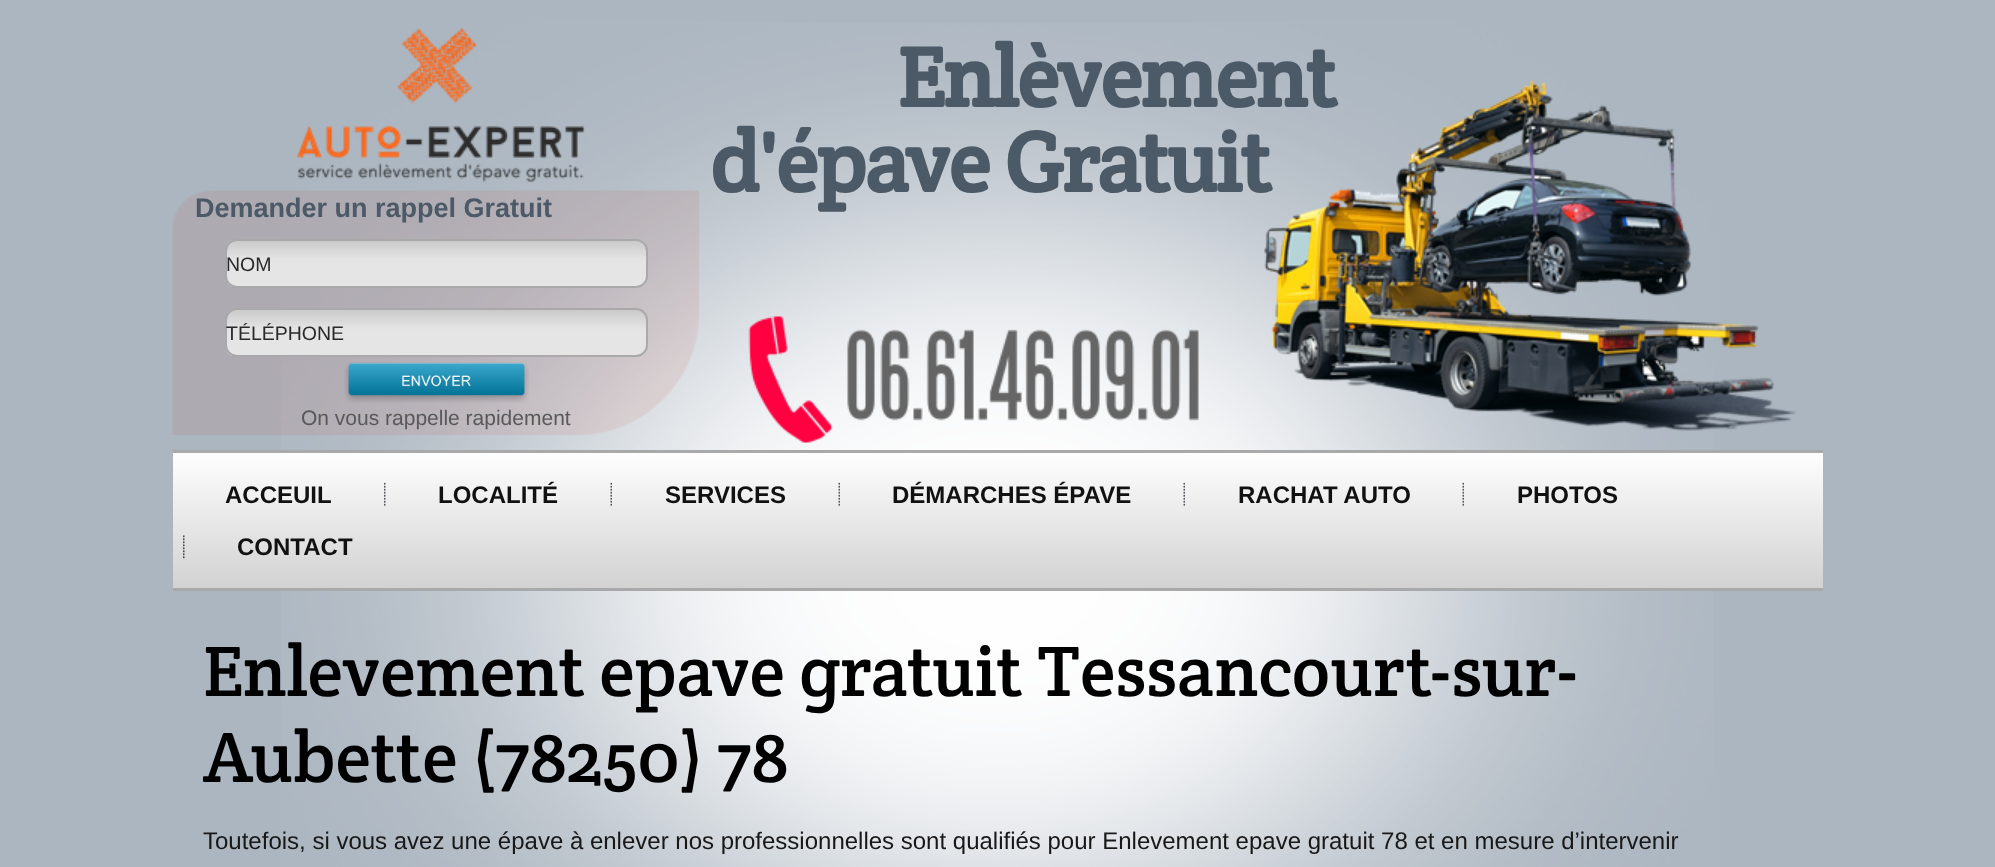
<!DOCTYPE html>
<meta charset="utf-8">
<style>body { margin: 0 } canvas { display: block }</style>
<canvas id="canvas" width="1995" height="867"></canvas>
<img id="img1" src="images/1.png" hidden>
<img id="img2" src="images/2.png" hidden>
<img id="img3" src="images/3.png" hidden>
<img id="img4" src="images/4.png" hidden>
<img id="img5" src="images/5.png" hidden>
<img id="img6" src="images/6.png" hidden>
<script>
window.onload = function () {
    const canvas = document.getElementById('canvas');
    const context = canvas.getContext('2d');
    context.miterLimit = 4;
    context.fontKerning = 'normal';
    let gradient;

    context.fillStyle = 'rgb(172, 182, 192)';
    context.fillRect(0, 0, 1995, 867);
    context.drawImage(document.getElementById('img1'), 281, 22, 1432, 845);
    context.drawImage(document.getElementById('img2'), 172, 27, 1624, 416);
    context.save();
    context.beginPath();
    context.roundRect(225, 239, 423, 49, 12);
    context.clip();
    gradient = context.createLinearGradient(437, 240, 437, 287);
    gradient.addColorStop(0, 'rgb(201, 201, 201)');
    gradient.addColorStop(0.4, 'rgb(227, 227, 227)');
    gradient.addColorStop(0.5, 'rgb(229, 229, 229)');
    gradient.addColorStop(1, 'rgb(229, 229, 229)');
    context.fillStyle = gradient;
    context.fillRect(227, 240, 420, 47);
    context.restore();
    context.beginPath();
    context.roundRect(226, 240, 421, 47, 11);
    context.strokeStyle = 'rgb(169, 169, 169)';
    context.lineWidth = 2;
    context.stroke();
    context.save();
    context.beginPath();
    context.roundRect(225, 308, 423, 49, 12);
    context.clip();
    gradient = context.createLinearGradient(437, 309, 437, 356);
    gradient.addColorStop(0, 'rgb(201, 201, 201)');
    gradient.addColorStop(0.4, 'rgb(227, 227, 227)');
    gradient.addColorStop(0.5, 'rgb(229, 229, 229)');
    gradient.addColorStop(1, 'rgb(229, 229, 229)');
    context.fillStyle = gradient;
    context.fillRect(227, 309, 420, 47);
    context.restore();
    context.beginPath();
    context.roundRect(226, 309, 421, 47, 11);
    context.stroke();
    context.drawImage(document.getElementById('img3'), 344, 362, 185, 41);
    gradient = context.createLinearGradient(998, 450, 998, 591);
    gradient.addColorStop(0, 'rgb(255, 255, 255)');
    gradient.addColorStop(1, 'rgb(209, 209, 209)');
    context.fillStyle = gradient;
    context.fillRect(173, 453, 1650, 135);
    context.fillStyle = 'rgb(169, 169, 169)';
    context.fillRect(173, 450, 1650, 3);
    context.fillRect(173, 588, 1650, 3);
    context.drawImage(document.getElementById('img4'), 384, 482, 2, 24);
    context.drawImage(document.getElementById('img5'), 610, 482, 2, 24);
    context.drawImage(document.getElementById('img5'), 838, 482, 2, 24);
    context.drawImage(document.getElementById('img5'), 1183, 482, 2, 24);
    context.drawImage(document.getElementById('img5'), 1462, 482, 2, 24);
    context.drawImage(document.getElementById('img6'), 183, 535, 2, 24);
    context.letterSpacing = '-1.5px';
    context.font = 'bold 85.5px Crete Round';
    context.fillStyle = 'rgb(76, 89, 102)';
    context.fillText('Enlèvement', 897, 107);
    context.fillText('d\'épave Gratuit', 710, 192);
    context.letterSpacing = '0px';
    context.font = 'bold 27px Liberation Sans';
    context.fillText('Demander un rappel Gratuit', 195, 217);
    context.font = '19.5px Liberation Sans';
    context.fillStyle = 'rgb(41, 41, 41)';
    context.fillText('NOM', 226, 271);
    context.fillText('TÉLÉPHONE', 226, 340);
    context.font = '21px Liberation Sans';
    context.fillStyle = 'rgb(89, 89, 89)';
    context.fillText('On vous rappelle rapidement', 301, 425);
    context.font = 'bold 24px Liberation Sans';
    context.fillStyle = 'rgb(17, 17, 17)';
    context.fillText('ACCEUIL', 225, 503);
    context.fillText('LOCALITÉ', 438, 503);
    context.fillText('SERVICES', 665, 503);
    context.fillText('DÉMARCHES ÉPAVE', 892, 503);
    context.fillText('RACHAT AUTO', 1238, 503);
    context.fillText('PHOTOS', 1517, 503);
    context.fillText('CONTACT', 237, 555);
    context.font = '72px Crete Round';
    context.fillStyle = 'rgb(0, 0, 0)';
    context.fillText('Enlevement epave gratuit Tessancourt-sur-', 203, 696);
    context.fillText('Aubette (78250) 78', 203, 782);
    context.font = '24px Liberation Sans';
    context.fillStyle = 'rgb(24, 24, 24)';
    context.fillText('Toutefois, si vous avez une épave à enlever nos professionnelles sont qualifiés pour Enlevement epave gratuit 78 et en mesure d’intervenir', 203, 849);
};
</script>
